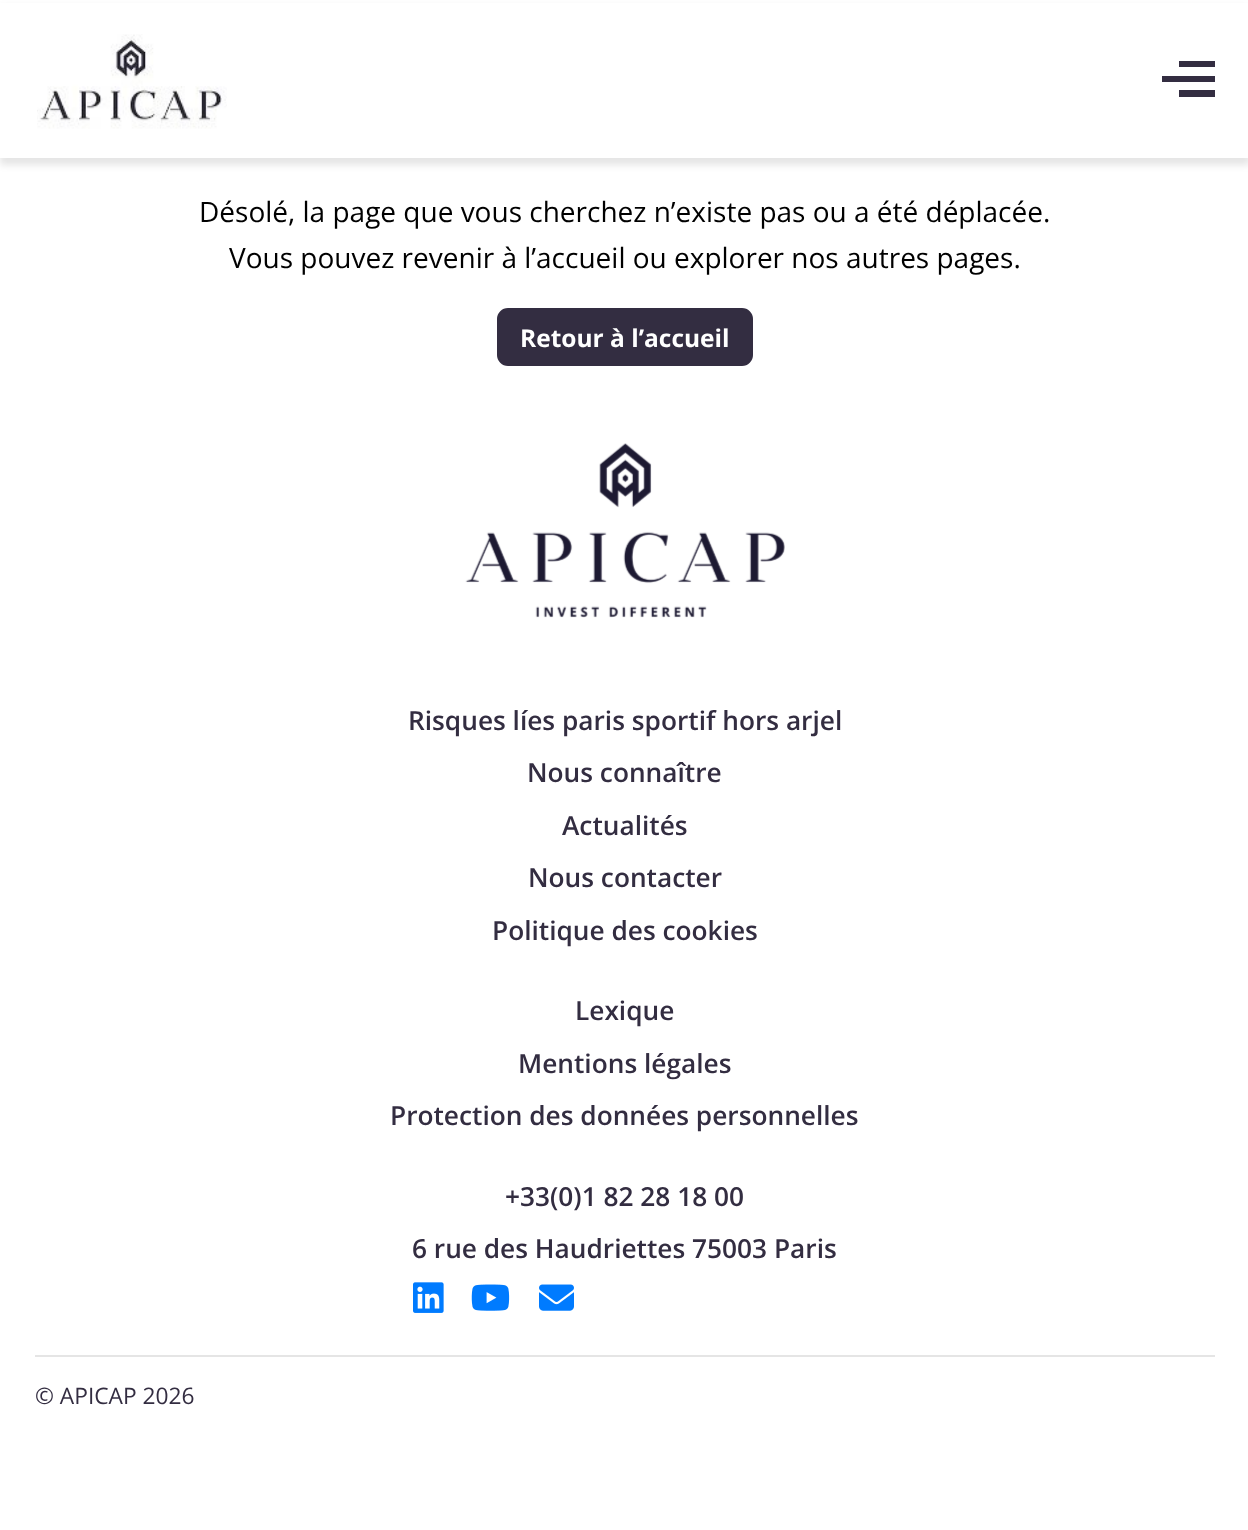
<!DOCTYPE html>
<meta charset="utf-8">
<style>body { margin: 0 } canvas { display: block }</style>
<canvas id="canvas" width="1248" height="1530"></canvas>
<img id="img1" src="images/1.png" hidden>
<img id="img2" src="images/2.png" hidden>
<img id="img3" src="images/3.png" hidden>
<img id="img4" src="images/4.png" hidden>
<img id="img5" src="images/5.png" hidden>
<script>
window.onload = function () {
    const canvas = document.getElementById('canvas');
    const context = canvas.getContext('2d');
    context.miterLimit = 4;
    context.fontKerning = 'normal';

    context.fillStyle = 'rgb(255, 255, 255)';
    context.fillRect(0, 0, 1248, 1530);
    context.fillStyle = 'rgba(0, 0, 0, 0.1)';
    context.filter = 'blur(3.5px)';
    context.beginPath();
    context.rect(0, 7, 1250, 158);
    context.fill();
    context.filter = 'none';
    context.fillStyle = 'rgb(255, 255, 255)';
    context.fillRect(0, 3, 1248, 155);
    context.drawImage(document.getElementById('img1'), 37, 34, 190, 95);
    context.fillStyle = 'rgb(51, 45, 65)';
    context.fillRect(1179, 61, 36, 6);
    context.fillRect(1179, 90, 36, 7);
    context.fillRect(1162, 76, 53, 6);
    context.beginPath();
    context.roundRect(498, 309, 254, 56, 10);
    context.fill();
    context.strokeStyle = 'rgb(51, 45, 65)';
    context.lineWidth = 2;
    context.stroke();
    context.drawImage(document.getElementById('img2'), 465, 443, 320, 175);
    context.drawImage(document.getElementById('img3'), 413, 1282, 31, 31);
    context.drawImage(document.getElementById('img4'), 471, 1284, 39, 27);
    context.drawImage(document.getElementById('img5'), 539, 1284, 35, 27);
    context.fillStyle = 'rgb(229, 229, 229)';
    context.fillRect(35, 1355, 1180, 2);
    context.font = '28px Open Sans';
    context.fillStyle = 'rgb(0, 0, 0)';
    context.fillText('Désolé, la page que vous cherchez n’existe pas ou a été déplacée.', 199, 222);
    context.fillText('Vous pouvez revenir à l’accueil ou explorer nos autres pages.', 229, 268);
    context.font = 'bold 24.5px Open Sans';
    context.fillStyle = 'rgb(255, 255, 255)';
    context.fillText('Retour à l’accueil', 520, 347);
    context.font = '600 26.25px Open Sans';
    context.fillStyle = 'rgb(51, 45, 65)';
    context.fillText('Risques líes paris sportif hors arjel', 408, 730);
    context.fillText('Nous connaître', 527, 782);
    context.fillText('Actualités', 562, 835);
    context.fillText('Nous contacter', 528, 887);
    context.fillText('Politique des cookies', 492, 940);
    context.fillText('Lexique', 575, 1020);
    context.fillText('Mentions légales', 518, 1073);
    context.fillText('Protection des données personnelles', 390, 1125);
    context.fillText('+33(0)1 82 28 18 00', 505, 1206);
    context.fillText('6 rue des Haudriettes 75003 Paris', 412, 1258);
    context.font = '22.75px Open Sans';
    context.fillText('© APICAP 2026', 35, 1404);
};
</script>
